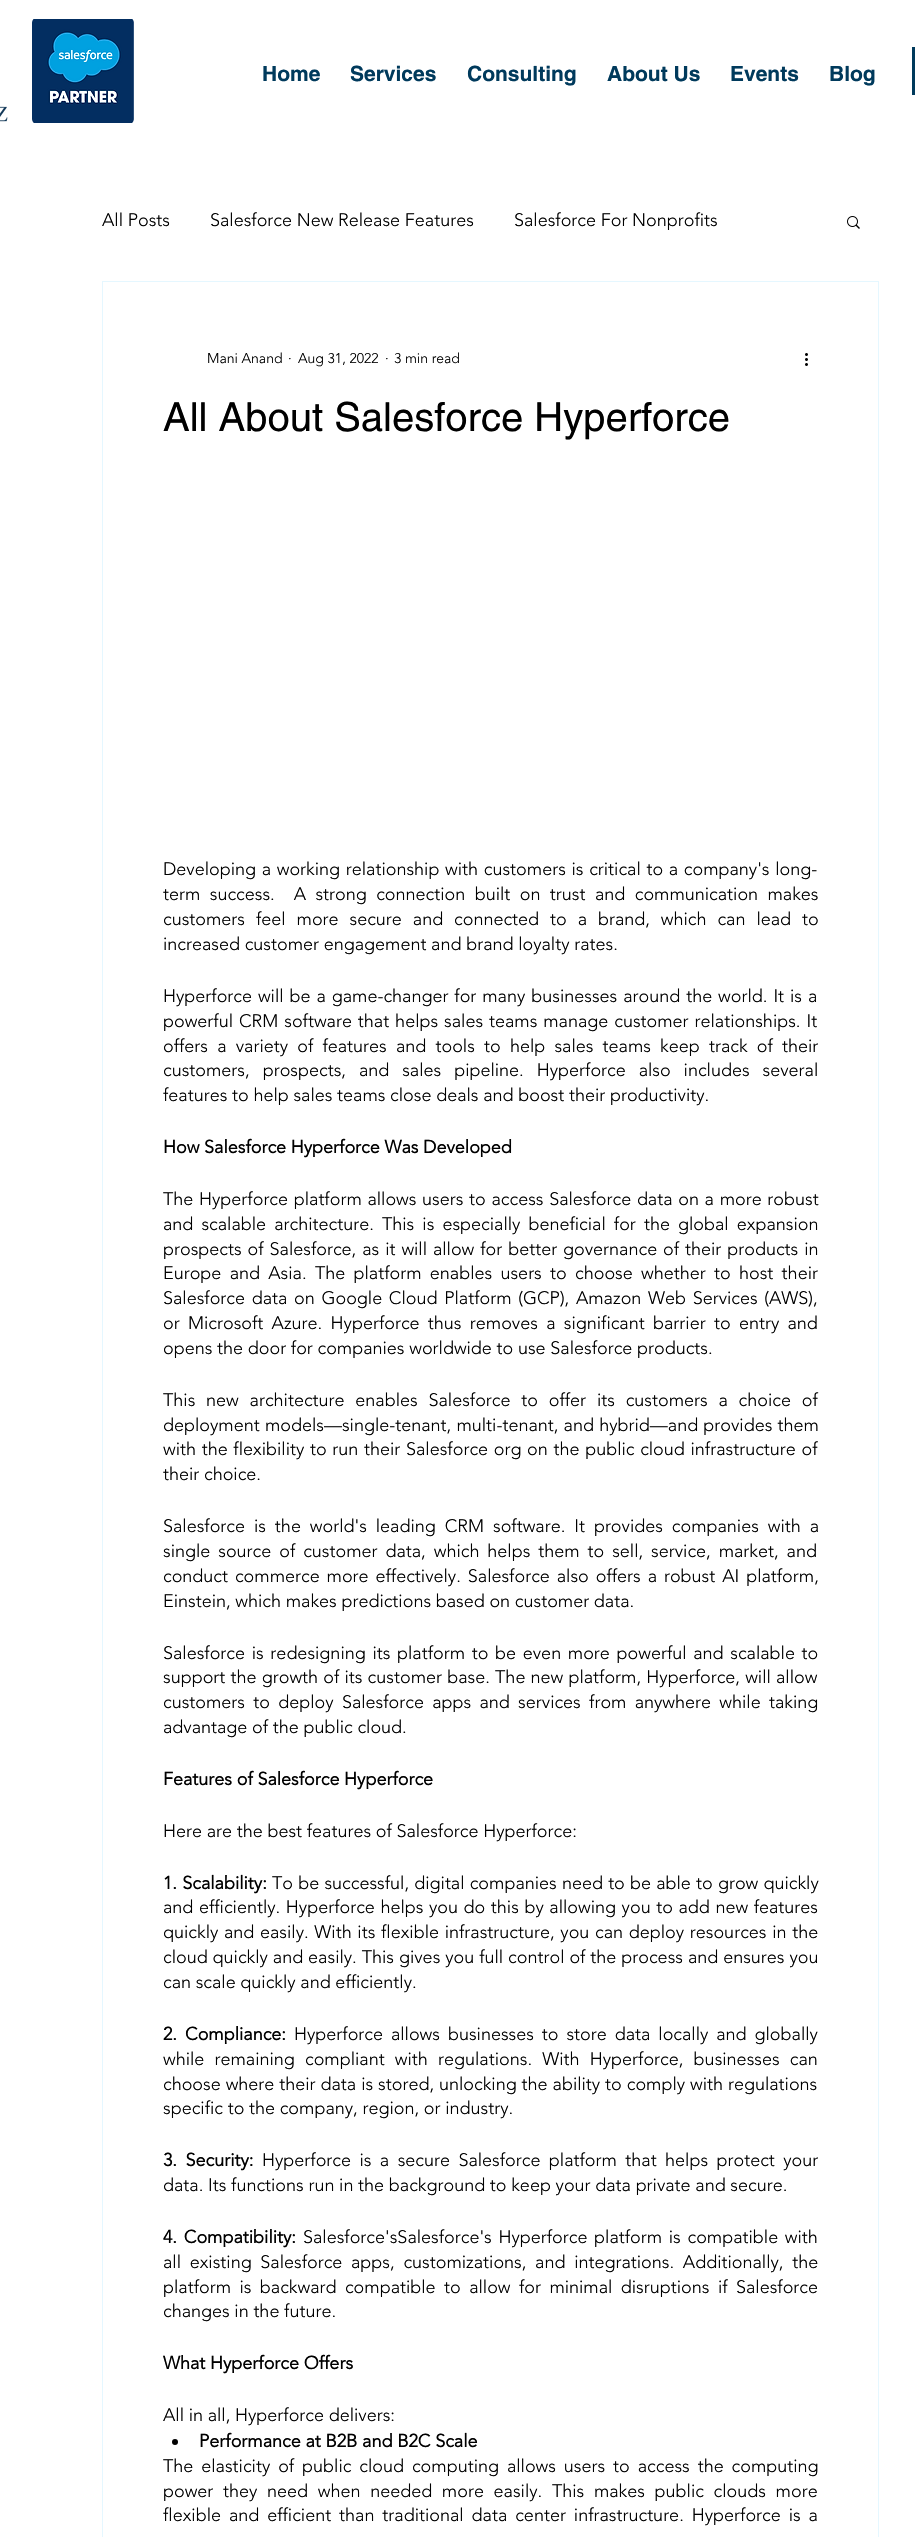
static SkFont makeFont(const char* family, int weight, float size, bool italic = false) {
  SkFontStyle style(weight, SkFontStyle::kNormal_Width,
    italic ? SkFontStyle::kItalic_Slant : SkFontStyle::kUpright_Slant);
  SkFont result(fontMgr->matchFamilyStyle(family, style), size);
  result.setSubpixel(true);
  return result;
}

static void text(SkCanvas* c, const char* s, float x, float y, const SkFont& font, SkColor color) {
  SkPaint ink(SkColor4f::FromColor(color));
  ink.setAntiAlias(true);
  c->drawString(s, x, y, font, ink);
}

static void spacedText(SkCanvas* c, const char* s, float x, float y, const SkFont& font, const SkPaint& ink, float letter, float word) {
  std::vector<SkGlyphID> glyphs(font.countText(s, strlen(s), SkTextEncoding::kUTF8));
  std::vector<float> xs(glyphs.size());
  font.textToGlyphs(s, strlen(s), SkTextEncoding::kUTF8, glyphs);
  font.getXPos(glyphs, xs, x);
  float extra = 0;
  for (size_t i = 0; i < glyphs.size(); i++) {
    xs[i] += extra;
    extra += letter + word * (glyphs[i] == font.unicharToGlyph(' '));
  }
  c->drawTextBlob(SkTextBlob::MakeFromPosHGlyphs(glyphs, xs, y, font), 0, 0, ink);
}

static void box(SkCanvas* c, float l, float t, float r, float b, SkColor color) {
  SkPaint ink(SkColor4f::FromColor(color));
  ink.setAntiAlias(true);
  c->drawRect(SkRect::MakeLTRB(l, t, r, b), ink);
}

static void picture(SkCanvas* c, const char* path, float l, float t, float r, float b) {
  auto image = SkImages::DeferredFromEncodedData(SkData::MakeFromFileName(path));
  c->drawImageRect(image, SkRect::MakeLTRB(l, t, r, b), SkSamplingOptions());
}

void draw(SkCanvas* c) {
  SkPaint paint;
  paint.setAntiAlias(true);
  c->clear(0xffffffff);
  picture(c, "img_01.png", 32, 19, 134, 123);
  SkFont face1 = makeFont("helvetica", 700, 21);
  text(c, "Home", 262, 81, face1, 0xff003a5c);
  text(c, "Services", 350, 81, face1, 0xff003a5c);
  text(c, "Consulting", 467, 81, face1, 0xff003a5c);
  text(c, "About Us", 607, 81, face1, 0xff003a5c);
  text(c, "Events", 730, 81, face1, 0xff003a5c);
  text(c, "Blog", 829, 81, face1, 0xff003a5c);
  box(c, 912, 47, 915, 95, 0xff003a5c);
  picture(c, "img_02.png", 0, 106, 8, 122);
  SkFont face2 = makeFont("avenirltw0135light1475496", 300, 18);
  text(c, "All Posts", 102, 226, face2, 0xff000000);
  text(c, "Salesforce New Release Features", 210, 226, face2, 0xff000000);
  text(c, "Salesforce For Nonprofits", 514, 226, face2, 0xff000000);
  picture(c, "img_03.png", 847, 216, 860, 229);
  paint.setStyle(SkPaint::kStroke_Style);
  paint.setStrokeWidth(1);
  paint.setColor(0xffe5f7ff);
  c->drawRect(SkRect::MakeLTRB(102.5f, 281.5f, 878.5f, 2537.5f), paint);
  SkFont face3 = makeFont("avenirltw0135light1475496", 300, 14);
  text(c, "Mani Anand", 207, 363, face3, 0xff000000);
  text(c, "·", 288, 363, face3, 0xff000000);
  text(c, "Aug 31, 2022", 298, 363, face3, 0xff000000);
  text(c, "·", 385, 363, face3, 0xff000000);
  text(c, "3 min read", 394, 363, face3, 0xff000000);
  picture(c, "img_04.png", 805, 353, 808, 366);
  SkFont face4 = makeFont("helvetica", 400, 40);
  text(c, "All About Salesforce Hyperforce", 163, 431, face4, 0xff000000);
  paint.setStyle(SkPaint::kFill_Style);
  paint.setColor(0xff000000);
  spacedText(c, "Developing a working relationship with customers is critical to a company's long-", 163, 875, face2, paint, 0, 1);
  spacedText(c, "term success.  A strong connection built on trust and communication makes", 163, 900, face2, paint, 0, 4.75f);
  spacedText(c, "customers feel more secure and connected to a brand, which can lead to", 163, 925, face2, paint, 0, 6.25f);
  text(c, "increased customer engagement and brand loyalty rates.", 163, 950, face2, 0xff000000);
  spacedText(c, "Hyperforce will be a game-changer for many businesses around the world. It is a", 163, 1002, face2, paint, 0, 1.25f);
  spacedText(c, "powerful CRM software that helps sales teams manage customer relationships. It", 163, 1027, face2, paint, 0, 1.25f);
  spacedText(c, "offers a variety of features and tools to help sales teams keep track of their", 163, 1052, face2, paint, 0, 4.5f);
  spacedText(c, "customers, prospects, and sales pipeline. Hyperforce also includes several", 163, 1076, face2, paint, 0, 8.25f);
  text(c, "features to help sales teams close deals and boost their productivity.", 163, 1101, face2, 0xff000000);
  SkFont face5 = makeFont("avenirltw0135light1475496", 700, 18);
  text(c, "How Salesforce Hyperforce Was Developed", 163, 1153, face5, 0xff000000);
  spacedText(c, "The Hyperforce platform allows users to access Salesforce data on a more robust", 163, 1205, face2, paint, 0, 1);
  spacedText(c, "and scalable architecture. This is especially beneficial for the global expansion", 163, 1230, face2, paint, 0, 3.4f);
  spacedText(c, "prospects of Salesforce, as it will allow for better governance of their products in", 163, 1255, face2, paint, 0, 1.25f);
  spacedText(c, "Europe and Asia. The platform enables users to choose whether to host their", 163, 1279, face2, paint, 0, 3.6f);
  spacedText(c, "Salesforce data on Google Cloud Platform (GCP), Amazon Web Services (AWS),", 163, 1304, face2, paint, 0, 2);
  spacedText(c, "or Microsoft Azure. Hyperforce thus removes a significant barrier to entry and", 163, 1329, face2, paint, 0, 3.6f);
  text(c, "opens the door for companies worldwide to use Salesforce products.", 163, 1354, face2, 0xff000000);
  spacedText(c, "This new architecture enables Salesforce to offer its customers a choice of", 163, 1406, face2, paint, 0, 6.1f);
  spacedText(c, "deployment models—single-tenant, multi-tenant, and hybrid—and provides them", 163, 1431, face2, paint, 0, 0.5f);
  spacedText(c, "with the flexibility to run their Salesforce org on the public cloud infrastructure of", 163, 1455, face2, paint, 0, 1);
  text(c, "their choice.", 163, 1480, face2, 0xff000000);
  spacedText(c, "Salesforce is the world's leading CRM software. It provides companies with a", 163, 1532, face2, paint, 0, 4.25f);
  spacedText(c, "single source of customer data, which helps them to sell, service, market, and", 163, 1557, face2, paint, 0, 3.25f);
  spacedText(c, "conduct commerce more effectively. Salesforce also offers a robust AI platform,", 163, 1582, face2, paint, 0, 2.25f);
  text(c, "Einstein, which makes predictions based on customer data.", 163, 1607, face2, 0xff000000);
  spacedText(c, "Salesforce is redesigning its platform to be even more powerful and scalable to", 163, 1659, face2, paint, 0, 2);
  spacedText(c, "support the growth of its customer base. The new platform, Hyperforce, will allow", 163, 1683, face2, paint, 0, 0.5f);
  spacedText(c, "customers to deploy Salesforce apps and services from anywhere while taking", 163, 1708, face2, paint, 0, 3.6f);
  text(c, "advantage of the public cloud.", 163, 1733, face2, 0xff000000);
  text(c, "Features of Salesforce Hyperforce", 163, 1785, face5, 0xff000000);
  text(c, "Here are the best features of Salesforce Hyperforce:", 163, 1837, face2, 0xff000000);
  spacedText(c, "1. Scalability:", 163, 1889, face5, paint, 0, 0.5f);
  spacedText(c, "To be successful, digital companies need to be able to grow quickly", 272, 1889, face2, paint, 0, 0.5f);
  spacedText(c, "and efficiently. Hyperforce helps you do this by allowing you to add new features", 163, 1913, face2, paint, 0, 0.9f);
  spacedText(c, "quickly and easily. With its flexible infrastructure, you can deploy resources in the", 163, 1938, face2, paint, 0, 1);
  spacedText(c, "cloud quickly and easily. This gives you full control of the process and ensures you", 163, 1963, face2, paint, 0, 0.25f);
  text(c, "can scale quickly and efficiently.", 163, 1988, face2, 0xff000000);
  spacedText(c, "2. Compliance:", 163, 2040, face5, paint, 0, 3.25f);
  spacedText(c, "Hyperforce allows businesses to store data locally and globally", 294, 2040, face2, paint, 0, 3.25f);
  spacedText(c, "while remaining compliant with regulations. With Hyperforce, businesses can", 163, 2065, face2, paint, 0, 5.5f);
  spacedText(c, "choose where their data is stored, unlocking the ability to comply with regulations", 163, 2090, face2, paint, 0, 0.25f);
  text(c, "specific to the company, region, or industry.", 163, 2114, face2, 0xff000000);
  spacedText(c, "3. Security:", 163, 2166, face5, paint, 0, 3.75f);
  spacedText(c, "Hyperforce is a secure Salesforce platform that helps protect your", 262, 2166, face2, paint, 0, 3.75f);
  text(c, "data. Its functions run in the background to keep your data private and secure.", 163, 2191, face2, 0xff000000);
  spacedText(c, "4. Compatibility:", 163, 2243, face5, paint, 0, 2);
  spacedText(c, "Salesforce'sSalesforce's Hyperforce platform is compatible with", 303, 2243, face2, paint, 0, 2);
  spacedText(c, "all existing Salesforce apps, customizations, and integrations. Additionally, the", 163, 2268, face2, paint, 0, 4);
  spacedText(c, "platform is backward compatible to allow for minimal disruptions if Salesforce", 163, 2293, face2, paint, 0, 3.75f);
  text(c, "changes in the future.", 163, 2317, face2, 0xff000000);
  text(c, "What Hyperforce Offers", 163, 2369, face5, 0xff000000);
  text(c, "All in all, Hyperforce delivers:", 163, 2421, face2, 0xff000000);
  c->drawCircle(175, 2442, 3, paint);
  text(c, "Performance at B2B and B2C Scale", 199, 2447, face5, 0xff000000);
  spacedText(c, "The elasticity of public cloud computing allows users to access the computing", 163, 2472, face2, paint, 0, 3.25f);
  spacedText(c, "power they need when needed more easily. This makes public clouds more", 163, 2497, face2, paint, 0, 5);
  spacedText(c, "flexible and efficient than traditional data center infrastructure. Hyperforce is a", 163, 2521, face2, paint, 0, 3.25f);
}
